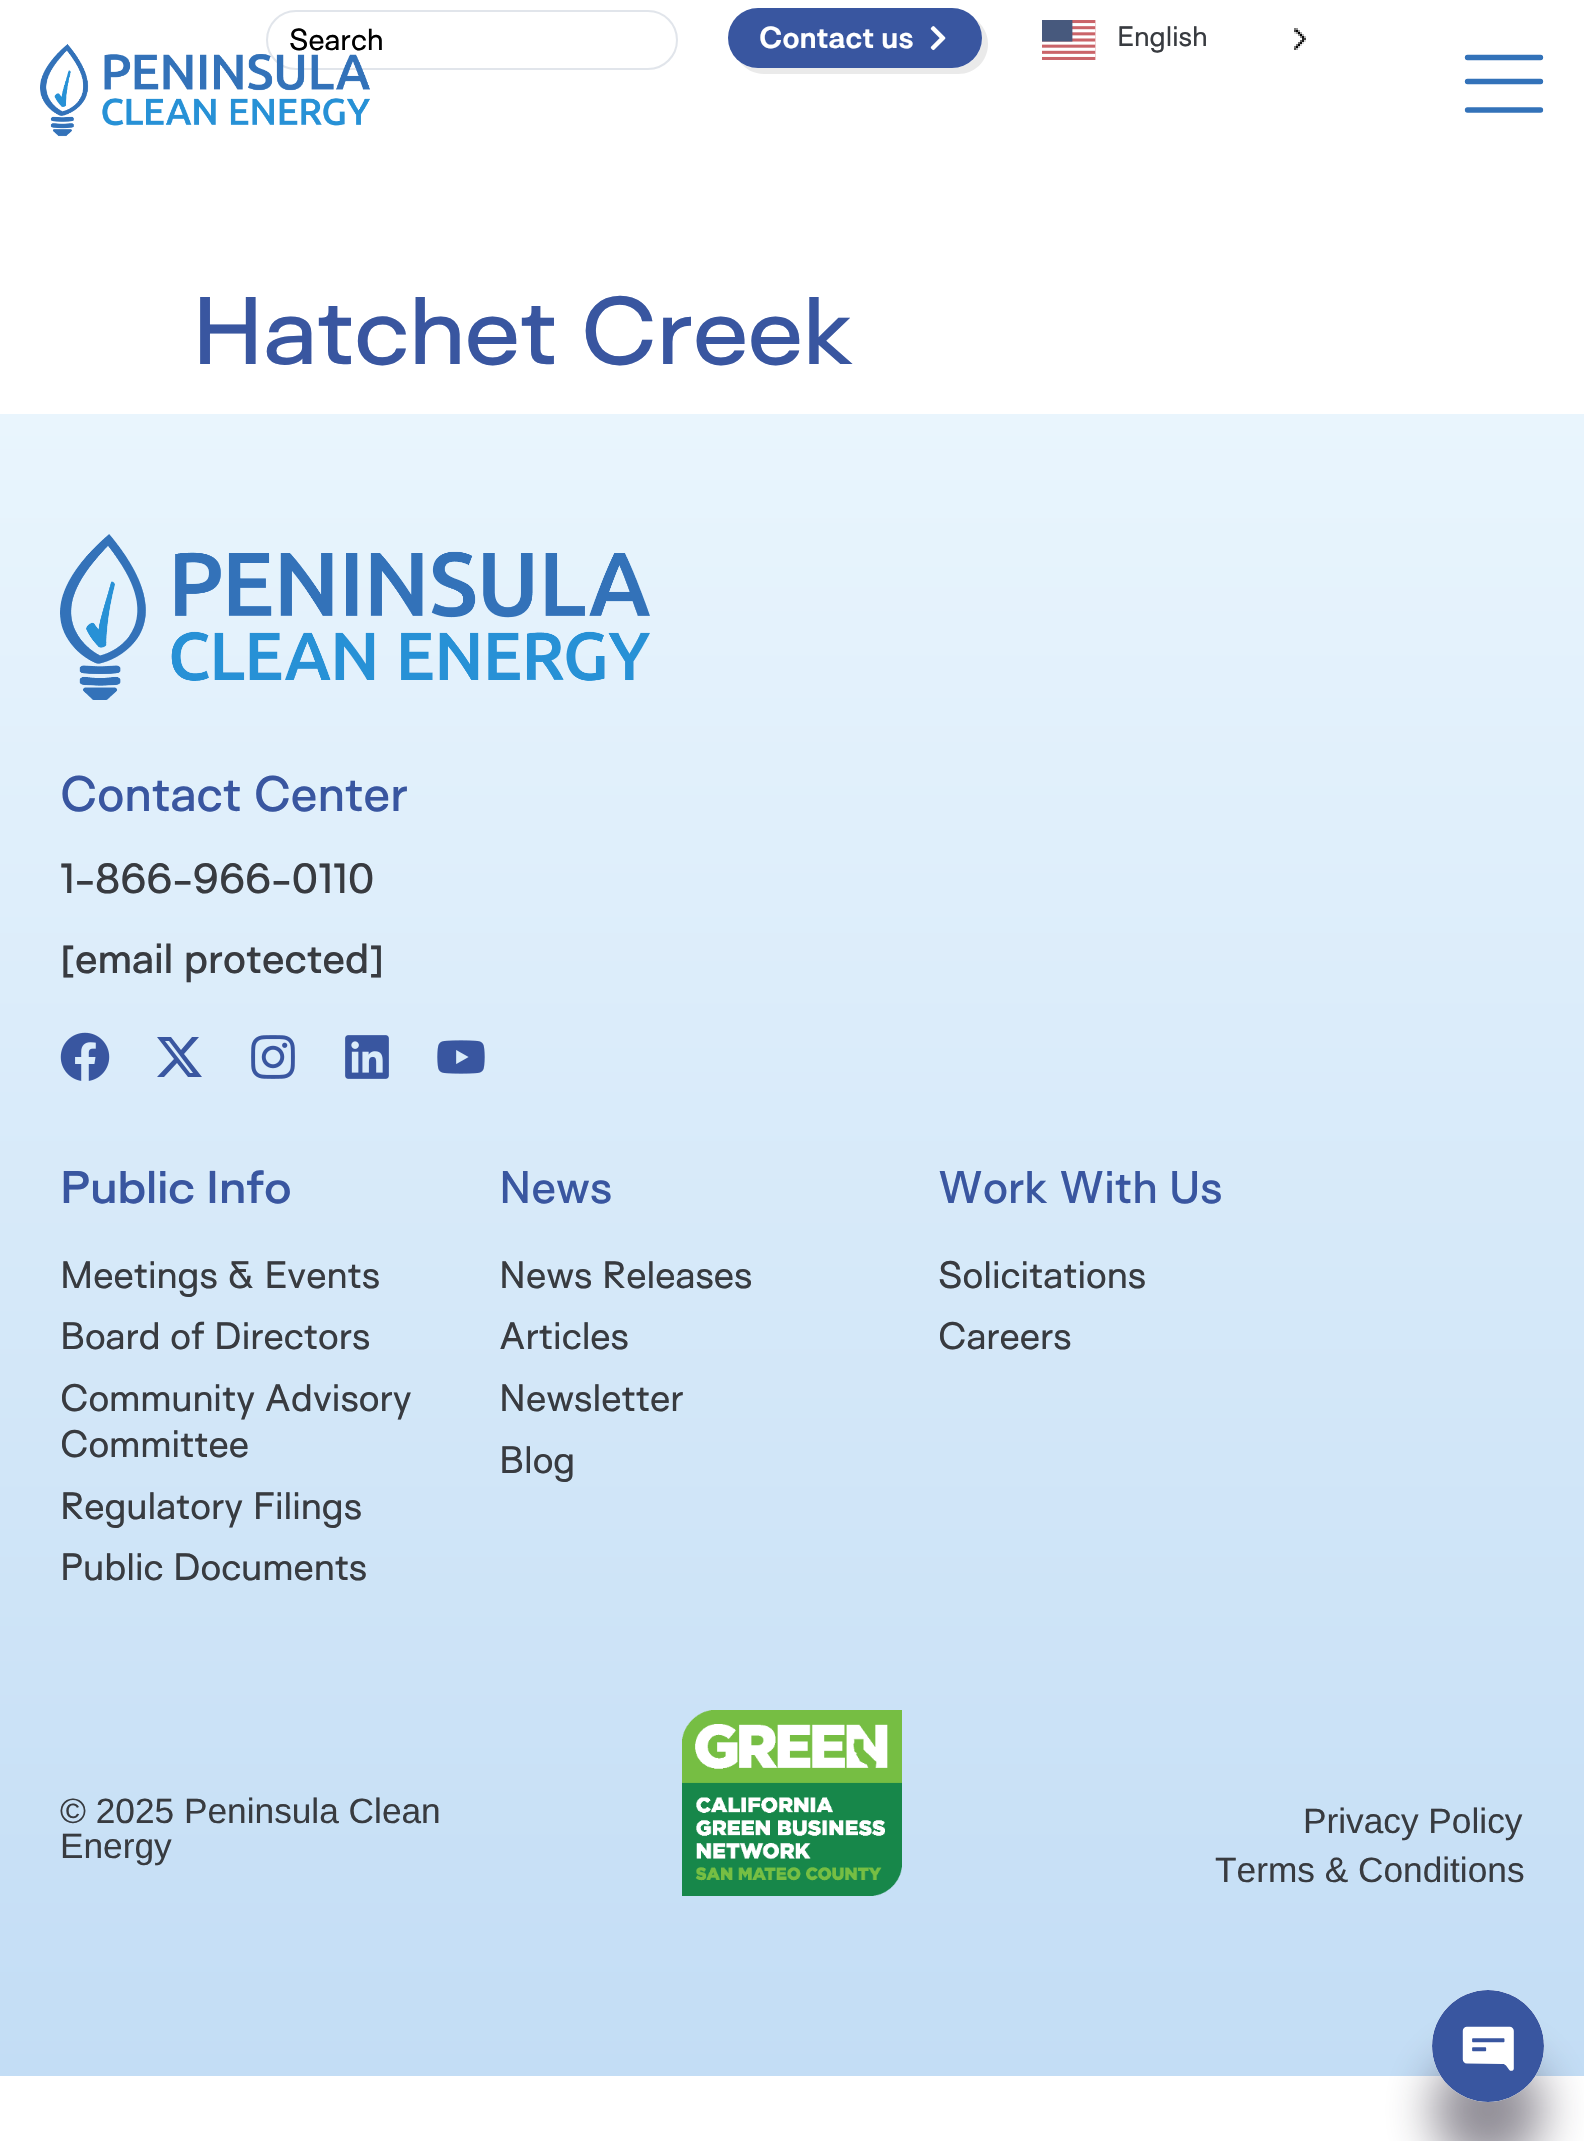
static SkFont makeFont(const char* family, int weight, float size, bool italic = false) {
  SkFontStyle style(weight, SkFontStyle::kNormal_Width,
    italic ? SkFontStyle::kItalic_Slant : SkFontStyle::kUpright_Slant);
  SkFont result(fontMgr->matchFamilyStyle(family, style), size);
  result.setSubpixel(true);
  return result;
}

static void text(SkCanvas* c, const char* s, float x, float y, const SkFont& font, SkColor color) {
  SkPaint ink(SkColor4f::FromColor(color));
  ink.setAntiAlias(true);
  c->drawString(s, x, y, font, ink);
}

static void roundBox(SkCanvas* c, float l, float t, float r, float b, float radius, SkColor color) {
  SkPaint ink(SkColor4f::FromColor(color));
  ink.setAntiAlias(true);
  c->drawRoundRect(SkRect::MakeLTRB(l, t, r, b), radius, radius, ink);
}

static void picture(SkCanvas* c, const char* path, float l, float t, float r, float b) {
  auto image = SkImages::DeferredFromEncodedData(SkData::MakeFromFileName(path));
  c->drawImageRect(image, SkRect::MakeLTRB(l, t, r, b), SkSamplingOptions());
}

void draw(SkCanvas* c) {
  SkPaint paint;
  paint.setAntiAlias(true);
  c->clear(0xffffffff);
  paint.setStyle(SkPaint::kStroke_Style);
  paint.setStrokeWidth(2);
  paint.setColor(0xffe1e5eb);
  c->drawRoundRect(SkRect::MakeLTRB(267, 11, 677, 69), 29, 29, paint);
  SkFont face1 = makeFont("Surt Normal", 400, 28);
  text(c, "Search", 289, 50, face1, 0xff000000);
  paint.setStyle(SkPaint::kFill_Style);
  paint.setColor(0xffeaeaea);
  c->drawPath(SkPathBuilder().moveTo(740, 62).cubicTo(745, 69, 754, 74, 764, 74).lineTo(958, 74).cubicTo(975, 74, 988, 61, 988, 44).cubicTo(988, 34, 983, 25, 976, 20).cubicTo(980, 25, 982, 31, 982, 38).cubicTo(982, 55, 969, 68, 952, 68).lineTo(758, 68).cubicTo(751, 68, 745, 66, 740, 62).close().detach(), paint);
  roundBox(c, 728, 8, 982, 68, 30, 0xff3956a0);
  SkFont face2 = makeFont("Surt Normal", 700, 28);
  text(c, "Contact us", 759, 48, face2, 0xffffffff);
  picture(c, "img_01.png", 930, 26, 946, 51);
  picture(c, "img_02.png", 1042, 20, 1096, 60);
  SkFont face3 = makeFont("Surt Normal", 400, 26);
  text(c, "English", 1117, 46, face3, 0xff383b40);
  picture(c, "img_03.png", 1294, 28, 1306, 50);
  picture(c, "img_04.png", 40, 44, 370, 137);
  paint.setStyle(SkPaint::kStroke_Style);
  paint.setStrokeWidth(5.3f);
  paint.setStrokeCap(SkPaint::kRound_Cap);
  paint.setColor(0xff3372b9);
  c->drawPath(SkPathBuilder().moveTo(1540.5f, 57.5f).lineTo(1467.5f, 57.5f).detach(), paint);
  c->drawPath(SkPathBuilder().moveTo(1540.5f, 81.5f).lineTo(1467.5f, 81.5f).detach(), paint);
  c->drawPath(SkPathBuilder().moveTo(1540.5f, 110).lineTo(1467.5f, 110).detach(), paint);
  SkFont face4 = makeFont("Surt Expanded", 500, 88);
  text(c, "Hatchet Creek", 192, 364, face4, 0xff3956a0);
  paint.setStyle(SkPaint::kFill_Style);
  {
    const SkColor colors[] = {0xffe9f5fd, 0xffc3ddf5};
    const float stops[] = {0, 1};
    const SkPoint ends[] = {{792, 414}, {792, 2076}};
    paint.setShader(SkGradientShader::MakeLinear(ends, colors, stops, 2, SkTileMode::kClamp));
    paint.setAlpha(255);
  }
  c->drawRect(SkRect::MakeLTRB(0, 414, 1584, 2076), paint);
  picture(c, "img_05.png", 60, 534, 650, 700);
  SkFont face5 = makeFont("Surt Normal", 500, 45.75f);
  text(c, "Contact Center", 60, 811, face5, 0xff3956a0);
  SkFont face6 = makeFont("Surt Normal", 500, 38.75f);
  text(c, "1-866-966-0110", 60, 893, face6, 0xff383b40);
  text(c, "[email protected]", 60, 973, face6, 0xff383b40);
  picture(c, "img_06.png", 60, 1032, 110, 1081);
  paint.setShader(nullptr);
  paint.setColor(0xff3956a0);
  c->drawPath(SkPathBuilder().moveTo(192, 1037).lineTo(199, 1037).lineTo(184, 1054).lineTo(202, 1077).lineTo(188, 1077).lineTo(177, 1063).lineTo(164, 1077).lineTo(157, 1077).lineTo(174, 1059).lineTo(157, 1037).lineTo(171, 1037).lineTo(181, 1050).close().moveTo(190, 1073).lineTo(193, 1073).lineTo(169, 1041).lineTo(165, 1041).close().detach(), paint);
  picture(c, "img_07.png", 251, 1035, 295, 1079);
  picture(c, "img_08.png", 345, 1035, 389, 1079);
  picture(c, "img_09.png", 437, 1040, 485, 1074);
  SkFont face7 = makeFont("Surt Expanded", 600, 42.25f);
  text(c, "Public Info", 60, 1203, face7, 0xff3956a0);
  SkFont face8 = makeFont("Surt Normal", 400, 35.25f);
  text(c, "Meetings & Events", 60, 1288, face8, 0xff383b40);
  text(c, "Board of Directors", 60, 1349, face8, 0xff383b40);
  text(c, "Community Advisory", 60, 1411, face8, 0xff383b40);
  text(c, "Committee", 60, 1457, face8, 0xff383b40);
  text(c, "Regulatory Filings", 60, 1519, face8, 0xff383b40);
  text(c, "Public Documents", 60, 1580, face8, 0xff383b40);
  SkFont face9 = makeFont("Surt Normal", 500, 42.25f);
  text(c, "News", 499, 1203, face9, 0xff3956a0);
  text(c, "News Releases", 499, 1288, face8, 0xff383b40);
  text(c, "Articles", 499, 1349, face8, 0xff383b40);
  text(c, "Newsletter", 499, 1411, face8, 0xff383b40);
  text(c, "Blog", 499, 1473, face8, 0xff383b40);
  text(c, "Work With Us", 938, 1203, face9, 0xff3956a0);
  text(c, "Solicitations", 938, 1288, face8, 0xff383b40);
  text(c, "Careers", 938, 1349, face8, 0xff383b40);
  SkFont face10 = makeFont("Liberation Sans", 400, 35.25f);
  text(c, "© 2025 Peninsula Clean", 60, 1823, face10, 0xff383b40);
  text(c, "Energy", 60, 1858, face10, 0xff383b40);
  picture(c, "img_10.png", 682, 1710, 902, 1896);
  text(c, "Privacy Policy", 1303, 1833, face10, 0xff383b40);
  text(c, "Terms & Conditions", 1215, 1882, face10, 0xff383b40);
  paint.setColor(0x80231e30);
  paint.setMaskFilter(SkMaskFilter::MakeBlur(kNormal_SkBlurStyle, 24));
  c->drawRoundRect(SkRect::MakeLTRB(1432, 2054, 1544, 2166), 56, 56, paint);
  paint.setMaskFilter(nullptr);
  paint.setColor(0xffffffff);
  c->drawCircle(1488, 2046, 56, paint);
  picture(c, "img_11.png", 1432, 1990, 1544, 2102);
}
